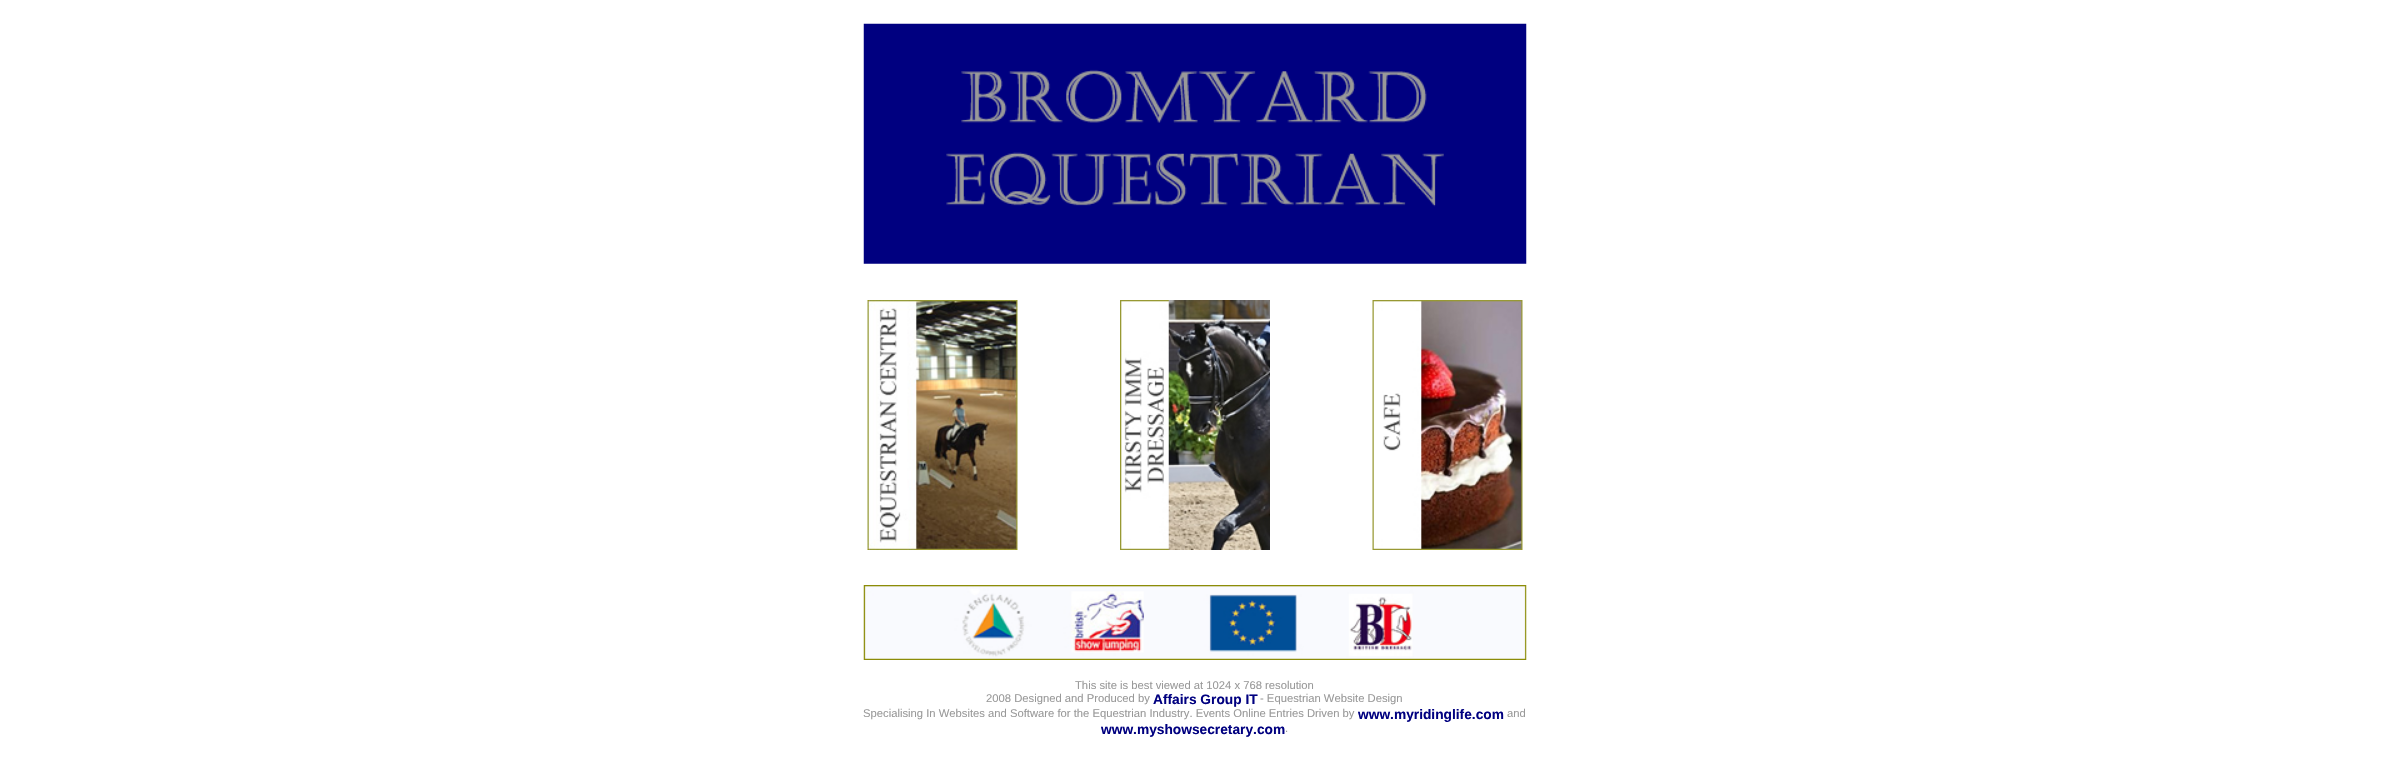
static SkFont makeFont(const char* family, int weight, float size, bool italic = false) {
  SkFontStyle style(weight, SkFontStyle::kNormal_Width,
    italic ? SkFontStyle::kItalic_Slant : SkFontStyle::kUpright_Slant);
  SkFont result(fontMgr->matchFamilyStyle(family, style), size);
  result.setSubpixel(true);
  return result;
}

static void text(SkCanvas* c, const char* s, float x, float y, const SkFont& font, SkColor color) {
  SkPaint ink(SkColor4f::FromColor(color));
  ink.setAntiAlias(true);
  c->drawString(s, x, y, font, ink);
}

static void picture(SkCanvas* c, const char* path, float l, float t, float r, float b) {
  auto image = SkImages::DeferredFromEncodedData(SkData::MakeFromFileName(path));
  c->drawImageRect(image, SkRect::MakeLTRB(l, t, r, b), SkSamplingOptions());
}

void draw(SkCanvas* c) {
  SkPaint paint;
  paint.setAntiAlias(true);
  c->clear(0xffffffff);
  picture(c, "img_01.png", 863, 23, 1527, 264);
  picture(c, "img_02.png", 867, 300, 1018, 550);
  picture(c, "img_03.png", 1120, 300, 1270, 550);
  picture(c, "img_04.png", 1372, 300, 1523, 550);
  picture(c, "img_05.png", 863, 585, 1527, 660);
  SkFont face1 = makeFont("Liberation Sans", 400, 11.25f);
  text(c, "This site is best viewed at 1024 x 768 resolution", 1075, 689, face1, 0xff999999);
  text(c, "2008 Designed and Produced by", 986, 702, face1, 0xff999999);
  SkFont face2 = makeFont("Liberation Sans", 700, 13.75f);
  text(c, "Affairs Group IT", 1153, 704, face2, 0xff000080);
  text(c, "- Equestrian Website Design", 1260, 702, face1, 0xff999999);
  text(c, "Specialising In Websites and Software for the Equestrian Industry. Events Online Entries Driven by", 863, 717, face1, 0xff999999);
  text(c, "www.myridinglife.com", 1358, 719, face2, 0xff000080);
  text(c, "and", 1507, 717, face1, 0xff999999);
  text(c, "www.myshowsecretary.com", 1101, 734, face2, 0xff000080);
  text(c, ".", 1285, 732, face1, 0xff999999);
}
